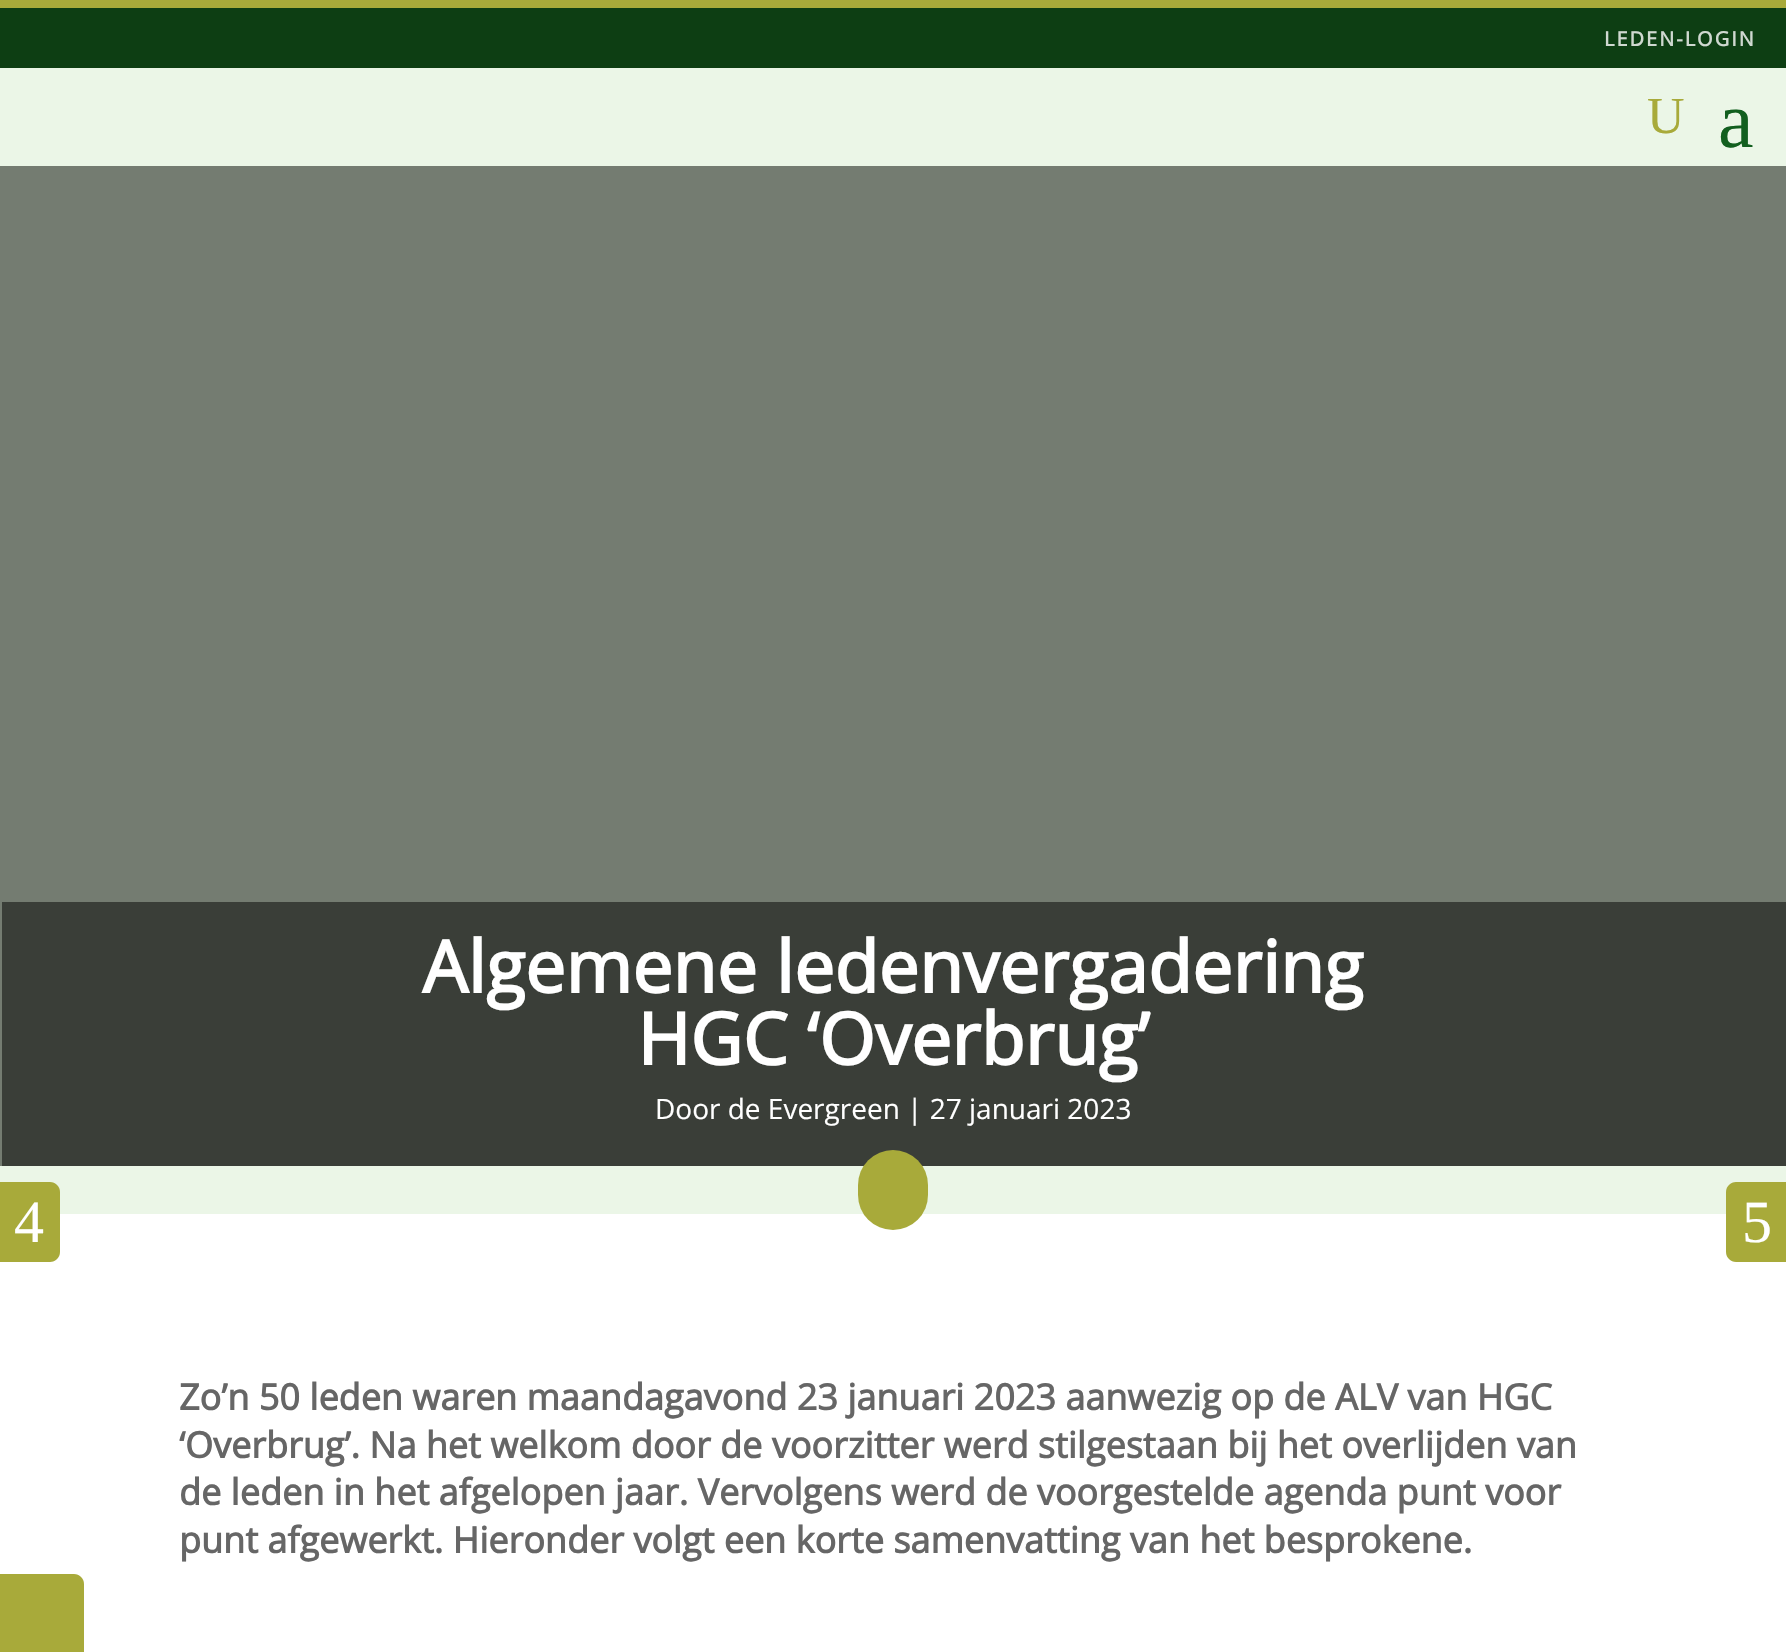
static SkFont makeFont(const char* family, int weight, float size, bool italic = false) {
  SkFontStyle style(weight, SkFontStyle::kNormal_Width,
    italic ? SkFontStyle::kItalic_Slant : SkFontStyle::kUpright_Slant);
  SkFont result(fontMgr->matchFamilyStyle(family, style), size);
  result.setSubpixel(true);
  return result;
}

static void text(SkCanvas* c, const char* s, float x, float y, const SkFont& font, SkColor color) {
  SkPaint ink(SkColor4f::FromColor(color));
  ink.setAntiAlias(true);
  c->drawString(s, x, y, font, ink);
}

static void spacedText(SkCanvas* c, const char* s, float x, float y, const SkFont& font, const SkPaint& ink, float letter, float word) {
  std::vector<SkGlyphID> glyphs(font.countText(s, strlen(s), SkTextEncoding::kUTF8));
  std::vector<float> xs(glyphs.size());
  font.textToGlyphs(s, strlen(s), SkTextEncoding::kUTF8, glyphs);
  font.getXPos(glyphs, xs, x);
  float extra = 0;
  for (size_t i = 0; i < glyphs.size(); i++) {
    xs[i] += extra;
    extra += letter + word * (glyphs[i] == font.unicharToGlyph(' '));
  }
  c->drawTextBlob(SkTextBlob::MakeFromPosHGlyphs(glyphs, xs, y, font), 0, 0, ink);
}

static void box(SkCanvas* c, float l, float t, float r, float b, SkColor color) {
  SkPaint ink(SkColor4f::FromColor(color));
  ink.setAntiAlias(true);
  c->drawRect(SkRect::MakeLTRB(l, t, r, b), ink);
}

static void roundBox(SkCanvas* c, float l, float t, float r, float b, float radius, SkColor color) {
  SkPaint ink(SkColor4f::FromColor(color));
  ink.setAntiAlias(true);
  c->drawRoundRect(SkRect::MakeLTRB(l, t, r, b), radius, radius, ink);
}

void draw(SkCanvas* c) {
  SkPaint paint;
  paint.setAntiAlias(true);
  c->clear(0xff0d3e13);
  box(c, 0, 0, 1786, 8, 0xffa8aa3a);
  SkFont face1 = makeFont("Open Sans", 700, 20);
  paint.setColor(0xffcfd8d0);
  spacedText(c, "LEDEN-LOGIN", 1604, 46, face1, paint, 2, 0);
  box(c, 0, 68, 1786, 166, 0xffebf6e7);
  SkFont face2 = makeFont("Liberation Serif", 400, 52);
  text(c, "U", 1647, 133, face2, 0xffa8aa3a);
  SkFont face3 = makeFont("Liberation Serif", 400, 80);
  text(c, "a", 1718, 147, face3, 0xff125f1f);
  box(c, 0, 166, 1786, 1166, 0xff747c71);
  box(c, 2, 902, 1786, 1166, 0xff3a3e38);
  SkFont face4 = makeFont("Open Sans", 700, 72);
  text(c, "Algemene ledenvergadering", 422, 993, face4, 0xffffffff);
  text(c, "HGC ‘Overbrug’", 637, 1065, face4, 0xffffffff);
  SkFont face5 = makeFont("Open Sans", 400, 28);
  text(c, "Door de Evergreen | 27 januari 2023", 655, 1119, face5, 0xffffffff);
  box(c, 0, 1166, 1786, 1214, 0xffebf6e7);
  box(c, 0, 1214, 1786, 1652, 0xffffffff);
  roundBox(c, 858, 1150, 928, 1230, 35, 0xffa8aa3a);
  SkFont face6 = makeFont("Open Sans", 700, 36);
  text(c, "Zo’n 50 leden waren maandagavond 23 januari 2023 aanwezig op de ALV van HGC", 179, 1410, face6, 0xff666666);
  text(c, "‘Overbrug’. Na het welkom door de voorzitter werd stilgestaan bij het overlijden van", 179, 1458, face6, 0xff666666);
  text(c, "de leden in het afgelopen jaar. Vervolgens werd de voorgestelde agenda punt voor", 179, 1505, face6, 0xff666666);
  text(c, "punt afgewerkt. Hieronder volgt een korte samenvatting van het besprokene.", 179, 1553, face6, 0xff666666);
  paint.setColor(0xffa8aa3a);
  c->drawPath(SkPathBuilder().moveTo(-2, 1182).lineTo(50, 1182).cubicTo(55.5f, 1182, 60, 1186.5f, 60, 1192).lineTo(60, 1252).cubicTo(60, 1257.5f, 55.5f, 1262, 50, 1262).lineTo(-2, 1262).close().detach(), paint);
  SkFont face7 = makeFont("Liberation Serif", 400, 60);
  text(c, "4", 14, 1242, face7, 0xffffffff);
  c->drawPath(SkPathBuilder().moveTo(1736, 1182).lineTo(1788, 1182).lineTo(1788, 1262).lineTo(1736, 1262).cubicTo(1730.5f, 1262, 1726, 1257.5f, 1726, 1252).lineTo(1726, 1192).cubicTo(1726, 1186.5f, 1730.5f, 1182, 1736, 1182).close().detach(), paint);
  text(c, "5", 1742, 1242, face7, 0xffffffff);
  c->drawPath(SkPathBuilder().moveTo(0, 1574).lineTo(74, 1574).cubicTo(79.5f, 1574, 84, 1578.5f, 84, 1584).lineTo(84, 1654).lineTo(0, 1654).close().detach(), paint);
}
